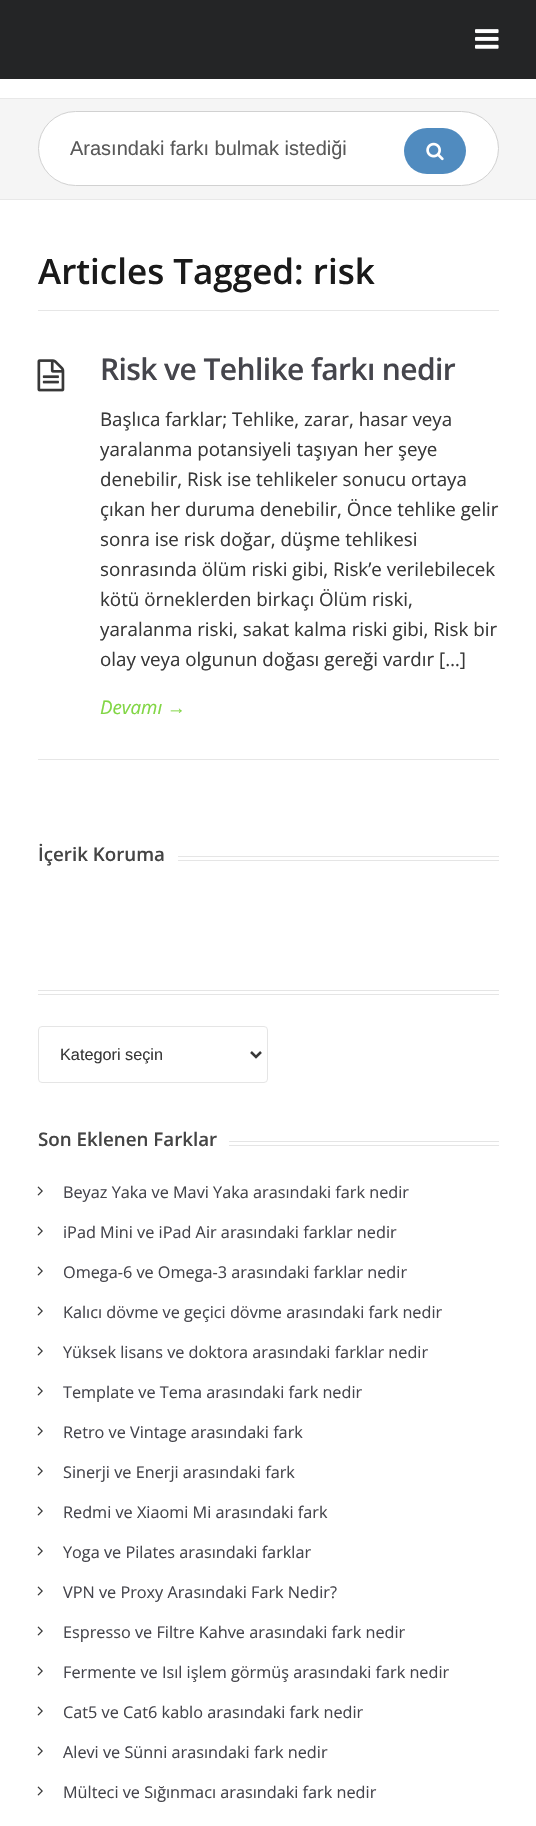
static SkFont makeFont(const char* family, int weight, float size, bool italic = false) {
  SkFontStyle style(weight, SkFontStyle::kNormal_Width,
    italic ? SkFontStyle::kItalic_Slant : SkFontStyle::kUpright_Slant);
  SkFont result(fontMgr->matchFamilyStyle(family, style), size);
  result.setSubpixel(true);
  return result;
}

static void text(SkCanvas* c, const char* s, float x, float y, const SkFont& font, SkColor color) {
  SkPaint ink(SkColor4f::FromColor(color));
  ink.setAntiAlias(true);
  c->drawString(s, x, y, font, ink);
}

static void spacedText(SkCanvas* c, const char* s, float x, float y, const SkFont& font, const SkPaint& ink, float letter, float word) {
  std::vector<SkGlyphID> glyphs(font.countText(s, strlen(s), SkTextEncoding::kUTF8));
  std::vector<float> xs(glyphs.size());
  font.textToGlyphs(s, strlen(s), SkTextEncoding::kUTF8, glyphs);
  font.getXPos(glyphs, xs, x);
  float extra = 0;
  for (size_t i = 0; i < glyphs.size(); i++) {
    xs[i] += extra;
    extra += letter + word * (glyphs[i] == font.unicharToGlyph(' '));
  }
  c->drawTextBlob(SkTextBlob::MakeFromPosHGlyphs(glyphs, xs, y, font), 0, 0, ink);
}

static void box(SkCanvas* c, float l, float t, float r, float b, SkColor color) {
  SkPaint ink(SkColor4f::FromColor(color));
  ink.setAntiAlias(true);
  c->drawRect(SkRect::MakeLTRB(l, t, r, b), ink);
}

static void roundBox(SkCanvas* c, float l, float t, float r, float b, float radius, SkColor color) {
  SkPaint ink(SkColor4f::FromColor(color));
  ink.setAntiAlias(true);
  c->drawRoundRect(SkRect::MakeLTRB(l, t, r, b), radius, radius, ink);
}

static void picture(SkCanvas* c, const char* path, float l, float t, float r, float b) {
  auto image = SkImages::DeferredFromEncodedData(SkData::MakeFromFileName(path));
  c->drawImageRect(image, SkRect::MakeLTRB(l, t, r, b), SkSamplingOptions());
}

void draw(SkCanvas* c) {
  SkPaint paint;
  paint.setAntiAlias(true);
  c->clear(0xffffffff);
  box(c, 0, 0, 536, 79, 0xff242526);
  picture(c, "img_01.png", 475, 29, 499, 49);
  box(c, 0, 99, 536, 199, 0xfff5f5f5);
  box(c, 0, 98, 536, 99, 0xffe8e8e8);
  box(c, 0, 199, 536, 200, 0xffe8e8e8);
  paint.setColor(0xffffffff);
  c->drawRoundRect(SkRect::MakeLTRB(38.5f, 111.5f, 498.5f, 185.5f), 37, 37, paint);
  paint.setStyle(SkPaint::kStroke_Style);
  paint.setStrokeWidth(1);
  paint.setColor(0xffd1d1d1);
  c->drawRoundRect(SkRect::MakeLTRB(38.5f, 111.5f, 498.5f, 185.5f), 37, 37, paint);
  SkFont face1 = makeFont("Liberation Sans", 400, 20);
  text(c, "Arasındaki farkı bulmak istediği", 70, 155, face1, 0xff595959);
  roundBox(c, 404, 128, 466, 174, 23, 0xff508bbf);
  picture(c, "img_02.png", 426, 142, 444, 161);
  box(c, 38, 310, 499, 311, 0xffe6e6e6);
  SkFont face2 = makeFont("Open Sans", 600, 35);
  text(c, "Articles Tagged: risk", 38, 284, face2, 0xff1a1a1a);
  box(c, 38, 759, 499, 760, 0xffe6e6e6);
  picture(c, "img_03.png", 37, 359, 65, 392);
  SkFont face3 = makeFont("Open Sans", 600, 30);
  paint.setStyle(SkPaint::kFill_Style);
  paint.setColor(0xff45454c);
  spacedText(c, "Risk ve Tehlike farkı nedir", 100, 380, face3, paint, -0.6f, 0);
  SkFont face4 = makeFont("Open Sans", 400, 18.75f);
  text(c, "Başlıca farklar; Tehlike, zarar, hasar veya", 100, 426, face4, 0xff383838);
  text(c, "yaralanma potansiyeli taşıyan her şeye", 100, 456, face4, 0xff383838);
  text(c, "denebilir, Risk ise tehlikeler sonucu ortaya", 100, 486, face4, 0xff383838);
  text(c, "çıkan her duruma denebilir, Önce tehlike gelir", 100, 516, face4, 0xff383838);
  text(c, "sonra ise risk doğar, düşme tehlikesi", 100, 546, face4, 0xff383838);
  text(c, "sonrasında ölüm riski gibi, Risk’e verilebilecek", 100, 576, face4, 0xff383838);
  text(c, "kötü örneklerden birkaçı Ölüm riski,", 100, 606, face4, 0xff383838);
  text(c, "yaralanma riski, sakat kalma riski gibi, Risk bir", 100, 636, face4, 0xff383838);
  text(c, "olay veya olgunun doğası gereği vardır […]", 100, 666, face4, 0xff383838);
  SkFont face5 = makeFont("Open Sans", 400, 18.75f, true);
  text(c, "Devamı", 100, 714, face5, 0xff81d644);
  SkFont face6 = makeFont("Liberation Sans", 400, 18.75f, true);
  text(c, "→", 167, 714, face6, 0xff81d644);
  box(c, 178, 856, 499, 857, 0xffe5e5e5);
  box(c, 178, 860, 499, 861, 0xffe5e5e5);
  SkFont face7 = makeFont("Open Sans", 600, 18.75f);
  text(c, "İçerik Koruma", 38, 861, face7, 0xff444444);
  box(c, 38, 990, 499, 991, 0xffe5e5e5);
  box(c, 38, 994, 499, 995, 0xffe5e5e5);
  paint.setStyle(SkPaint::kStroke_Style);
  paint.setColor(0xffe5e5e5);
  c->drawRoundRect(SkRect::MakeLTRB(38.5f, 1026.5f, 267.5f, 1082.5f), 3.5f, 3.5f, paint);
  paint.setStrokeWidth(2.5f);
  paint.setColor(0xff383838);
  c->drawPath(SkPathBuilder().moveTo(251, 1052).lineTo(256, 1057).lineTo(261, 1052).detach(), paint);
  SkFont face8 = makeFont("Liberation Sans", 400, 16.25f);
  text(c, "Kategori seçin", 60, 1060, face8, 0xff383838);
  box(c, 229, 1141, 499, 1142, 0xffe5e5e5);
  box(c, 229, 1145, 499, 1146, 0xffe5e5e5);
  text(c, "Son Eklenen Farklar", 38, 1146, face7, 0xff444444);
  picture(c, "img_04.png", 37, 1186, 43, 1196);
  SkFont face9 = makeFont("Open Sans", 400, 16.25f);
  text(c, "Beyaz Yaka ve Mavi Yaka arasındaki fark nedir", 63, 1198, face9, 0xff45454c);
  picture(c, "img_04.png", 37, 1226, 43, 1236);
  text(c, "iPad Mini ve iPad Air arasındaki farklar nedir", 63, 1238, face9, 0xff45454c);
  picture(c, "img_04.png", 37, 1266, 43, 1276);
  text(c, "Omega-6 ve Omega-3 arasındaki farklar nedir", 63, 1278, face9, 0xff45454c);
  picture(c, "img_04.png", 37, 1306, 43, 1316);
  text(c, "Kalıcı dövme ve geçici dövme arasındaki fark nedir", 63, 1318, face9, 0xff45454c);
  picture(c, "img_04.png", 37, 1346, 43, 1356);
  text(c, "Yüksek lisans ve doktora arasındaki farklar nedir", 63, 1358, face9, 0xff45454c);
  picture(c, "img_04.png", 37, 1386, 43, 1396);
  text(c, "Template ve Tema arasındaki fark nedir", 63, 1398, face9, 0xff45454c);
  picture(c, "img_04.png", 37, 1426, 43, 1436);
  text(c, "Retro ve Vintage arasındaki fark", 63, 1438, face9, 0xff45454c);
  picture(c, "img_04.png", 37, 1466, 43, 1476);
  text(c, "Sinerji ve Enerji arasındaki fark", 63, 1478, face9, 0xff45454c);
  picture(c, "img_04.png", 37, 1506, 43, 1516);
  text(c, "Redmi ve Xiaomi Mi arasındaki fark", 63, 1518, face9, 0xff45454c);
  picture(c, "img_04.png", 37, 1546, 43, 1556);
  text(c, "Yoga ve Pilates arasındaki farklar", 63, 1558, face9, 0xff45454c);
  picture(c, "img_04.png", 37, 1586, 43, 1596);
  text(c, "VPN ve Proxy Arasındaki Fark Nedir?", 63, 1598, face9, 0xff45454c);
  picture(c, "img_04.png", 37, 1626, 43, 1636);
  text(c, "Espresso ve Filtre Kahve arasındaki fark nedir", 63, 1638, face9, 0xff45454c);
  picture(c, "img_04.png", 37, 1666, 43, 1676);
  text(c, "Fermente ve Isıl işlem görmüş arasındaki fark nedir", 63, 1678, face9, 0xff45454c);
  picture(c, "img_04.png", 37, 1706, 43, 1716);
  text(c, "Cat5 ve Cat6 kablo arasındaki fark nedir", 63, 1718, face9, 0xff45454c);
  picture(c, "img_04.png", 37, 1746, 43, 1756);
  text(c, "Alevi ve Sünni arasındaki fark nedir", 63, 1758, face9, 0xff45454c);
  picture(c, "img_04.png", 37, 1786, 43, 1796);
  text(c, "Mülteci ve Sığınmacı arasındaki fark nedir", 63, 1798, face9, 0xff45454c);
}
